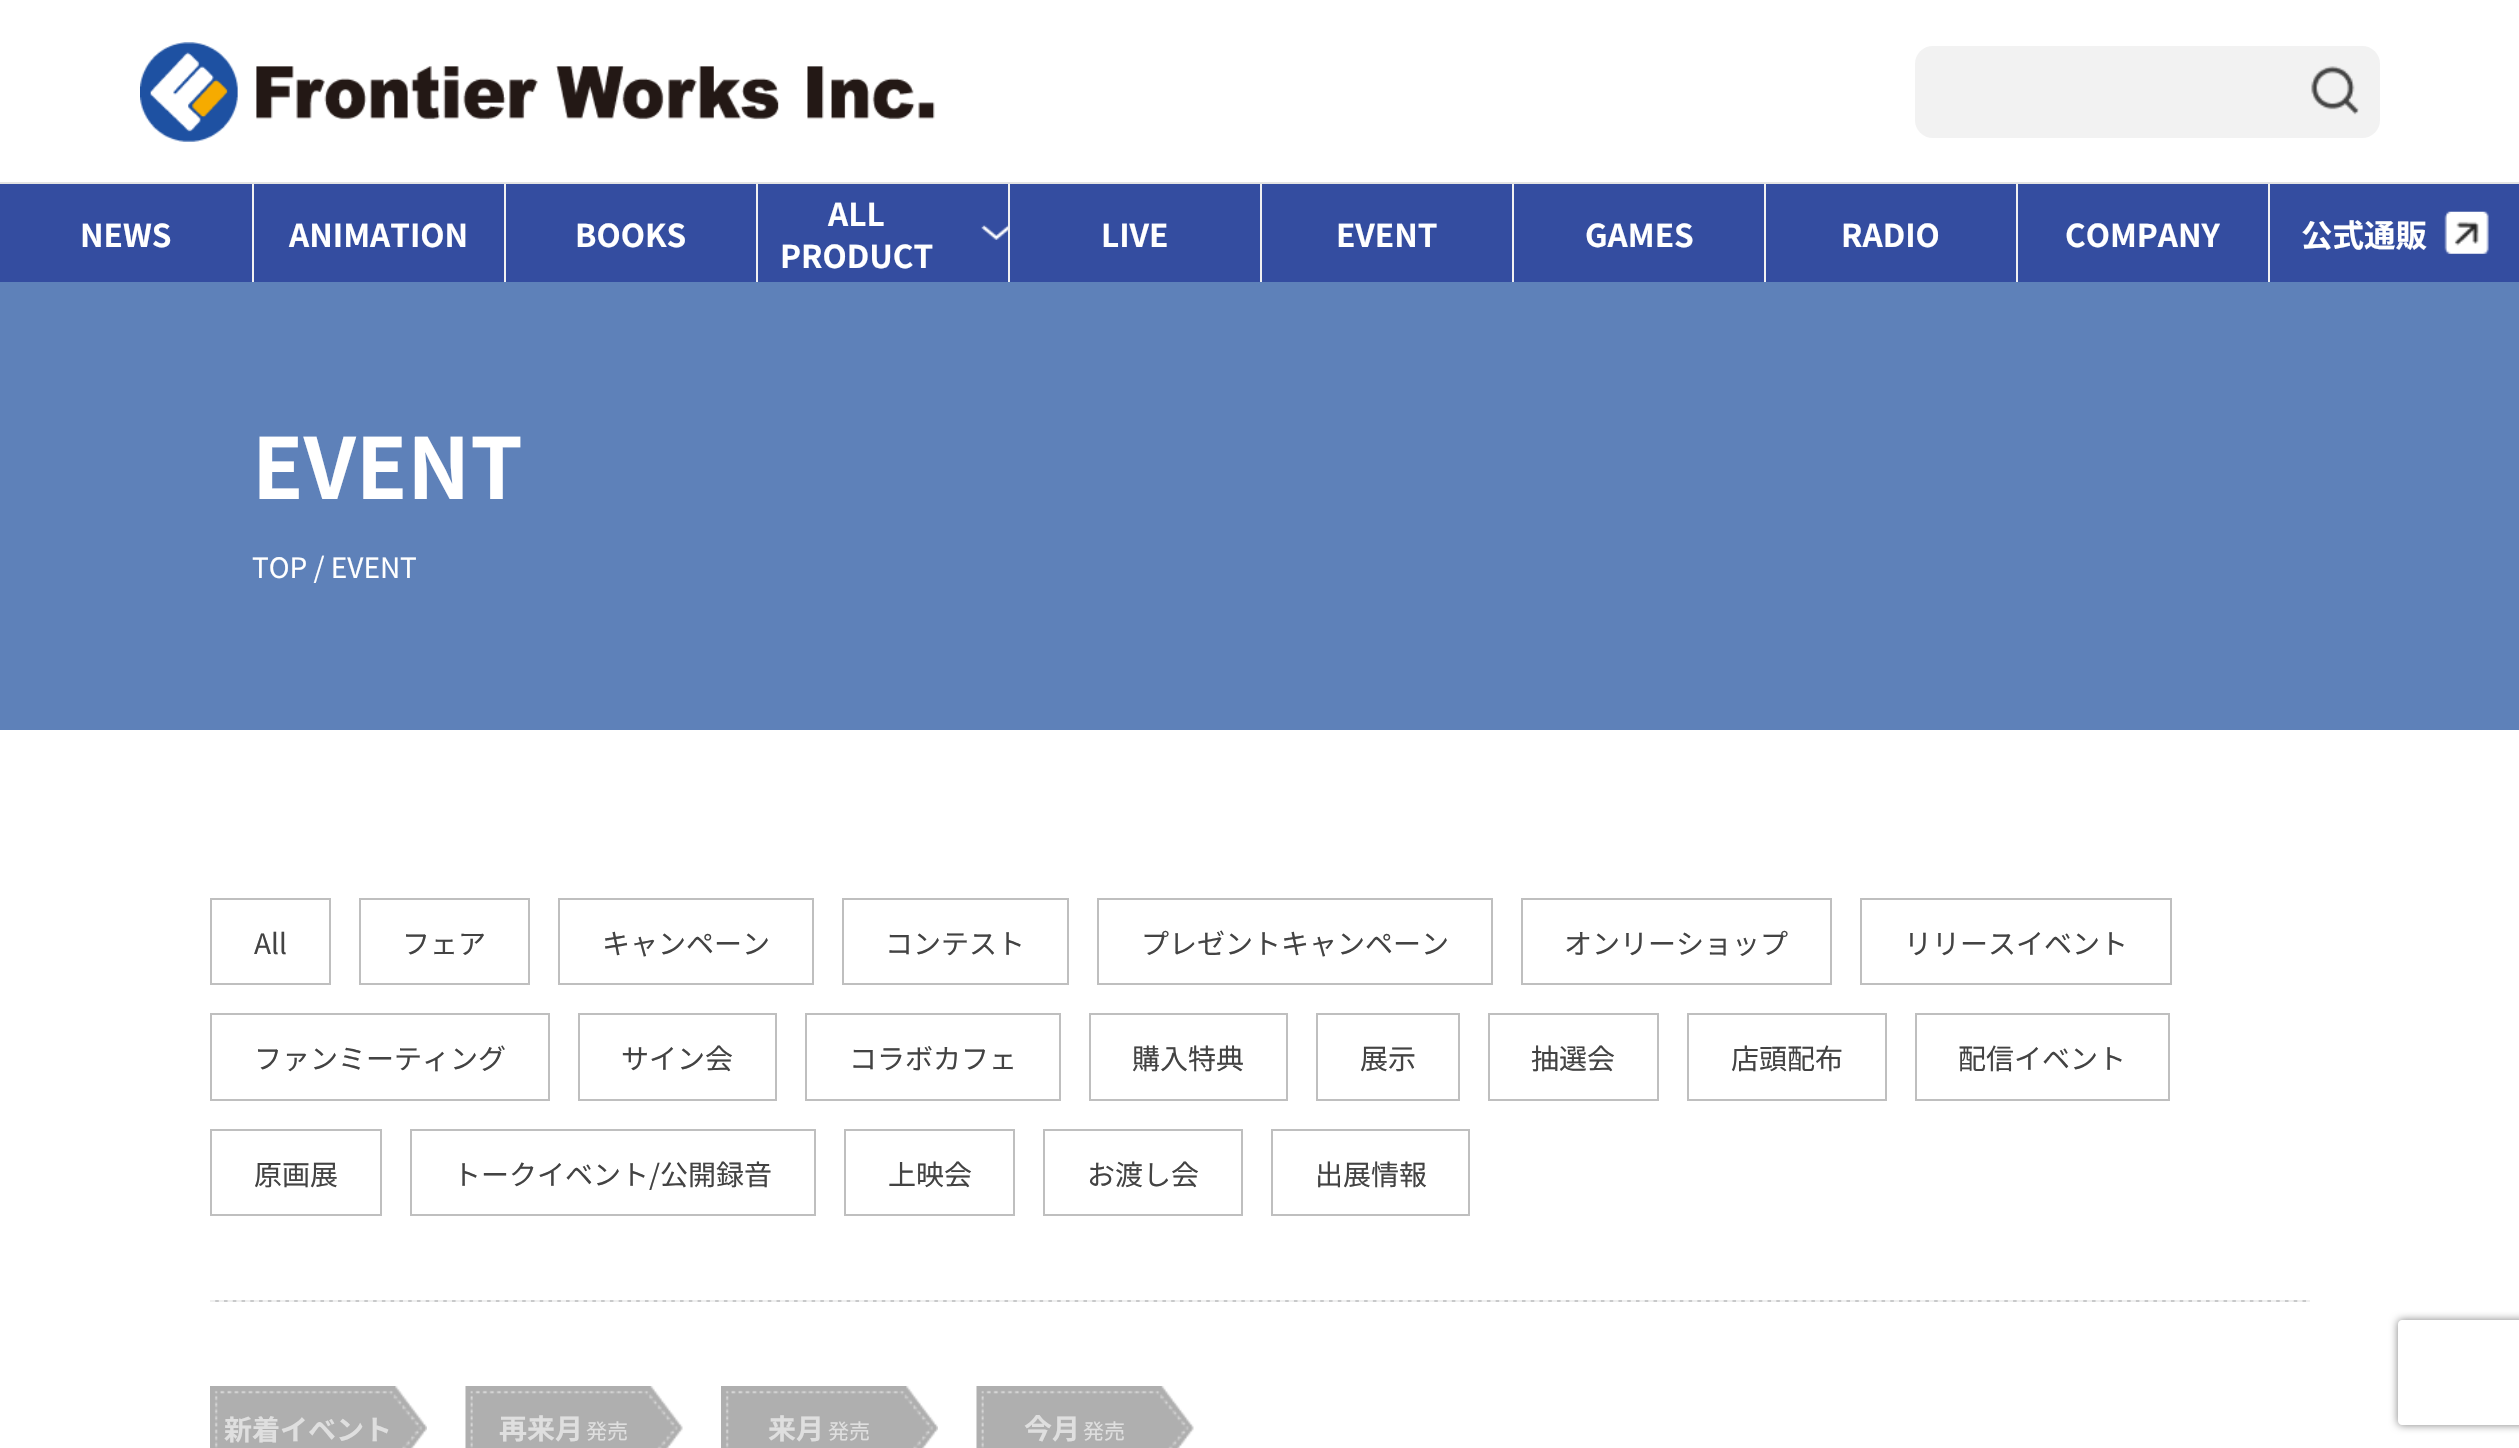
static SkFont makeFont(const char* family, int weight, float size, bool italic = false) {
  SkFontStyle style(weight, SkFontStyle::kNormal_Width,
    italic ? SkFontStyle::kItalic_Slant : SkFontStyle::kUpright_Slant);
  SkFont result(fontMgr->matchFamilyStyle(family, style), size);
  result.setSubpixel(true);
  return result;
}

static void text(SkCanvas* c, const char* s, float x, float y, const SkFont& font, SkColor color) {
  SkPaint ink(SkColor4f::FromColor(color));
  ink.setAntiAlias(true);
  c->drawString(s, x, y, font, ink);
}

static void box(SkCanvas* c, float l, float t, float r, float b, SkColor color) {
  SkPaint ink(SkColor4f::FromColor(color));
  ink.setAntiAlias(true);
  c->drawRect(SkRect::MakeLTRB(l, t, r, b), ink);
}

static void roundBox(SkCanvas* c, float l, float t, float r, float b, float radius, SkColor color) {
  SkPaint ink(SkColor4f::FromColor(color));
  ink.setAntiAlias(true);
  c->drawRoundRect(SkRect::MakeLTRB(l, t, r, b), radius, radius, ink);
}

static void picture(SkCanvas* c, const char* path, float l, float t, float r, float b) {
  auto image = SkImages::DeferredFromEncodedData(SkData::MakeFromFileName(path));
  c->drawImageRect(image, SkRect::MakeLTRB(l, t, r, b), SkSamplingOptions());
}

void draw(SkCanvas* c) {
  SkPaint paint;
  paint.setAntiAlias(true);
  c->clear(0xffffffff);
  picture(c, "img_01.png", 140, 42, 935, 142);
  roundBox(c, 1915, 46, 2380, 138, 18, 0xfff2f2f2);
  picture(c, "img_02.png", 2311, 66, 2359, 115);
  box(c, 0, 184, 2519, 282, 0xff344da0);
  box(c, 0, 182, 756, 184, 0xffe3e3e3);
  SkFont face1 = makeFont("Noto Sans JP", 700, 31.5f);
  text(c, "NEWS", 80, 247, face1, 0xffffffff);
  box(c, 252, 184, 254, 282, 0xfff1f1f1);
  text(c, "ANIMATION", 289, 247, face1, 0xffffffff);
  box(c, 504, 184, 506, 282, 0xfff1f1f1);
  text(c, "BOOKS", 575, 247, face1, 0xffffffff);
  box(c, 756, 184, 758, 282, 0xfff1f1f1);
  text(c, "ALL", 828, 226, face1, 0xffffffff);
  picture(c, "img_03.png", 981, 225, 1008, 240);
  text(c, "PRODUCT", 780, 268, face1, 0xffffffff);
  box(c, 756, 182, 2519, 184, 0xffe3e3e3);
  box(c, 1008, 184, 1010, 282, 0xfff1f1f1);
  text(c, "LIVE", 1101, 247, face1, 0xffffffff);
  box(c, 1260, 184, 1262, 282, 0xfff1f1f1);
  text(c, "EVENT", 1336, 247, face1, 0xffffffff);
  box(c, 1512, 184, 1514, 282, 0xfff1f1f1);
  text(c, "GAMES", 1585, 247, face1, 0xffffffff);
  box(c, 1764, 184, 1766, 282, 0xfff1f1f1);
  text(c, "RADIO", 1841, 247, face1, 0xffffffff);
  box(c, 2016, 184, 2018, 282, 0xfff1f1f1);
  text(c, "COMPANY", 2065, 247, face1, 0xffffffff);
  box(c, 2268, 184, 2270, 282, 0xfff1f1f1);
  text(c, "公式通販", 2301, 247, face1, 0xffffffff);
  picture(c, "img_04.png", 2444, 211, 2489, 254);
  box(c, 0, 282, 2519, 730, 0xff5e81b9);
  SkFont face2 = makeFont("Noto Sans JP", 700, 84);
  text(c, "EVENT", 252, 499, face2, 0xffffffff);
  SkFont face3 = makeFont("Noto Sans JP", 400, 28);
  text(c, "TOP / EVENT", 252, 578, face3, 0xffffffff);
  paint.setStyle(SkPaint::kStroke_Style);
  paint.setStrokeWidth(2);
  paint.setColor(0xffbfbfbf);
  c->drawRect(SkRect::MakeLTRB(211, 899, 330, 984), paint);
  text(c, "All", 254, 954, face3, 0xff434343);
  c->drawRect(SkRect::MakeLTRB(360, 899, 529, 984), paint);
  text(c, "フェア", 402, 954, face3, 0xff434343);
  c->drawRect(SkRect::MakeLTRB(559, 899, 813, 984), paint);
  text(c, "キャンペーン", 602, 954, face3, 0xff434343);
  c->drawRect(SkRect::MakeLTRB(843, 899, 1068, 984), paint);
  text(c, "コンテスト", 885, 954, face3, 0xff434343);
  c->drawRect(SkRect::MakeLTRB(1098, 899, 1492, 984), paint);
  text(c, "プレゼントキャンペーン", 1141, 954, face3, 0xff434343);
  c->drawRect(SkRect::MakeLTRB(1522, 899, 1831, 984), paint);
  text(c, "オンリーショップ", 1564, 954, face3, 0xff434343);
  c->drawRect(SkRect::MakeLTRB(1861, 899, 2171, 984), paint);
  text(c, "リリースイベント", 1904, 954, face3, 0xff434343);
  c->drawRect(SkRect::MakeLTRB(211, 1014, 549, 1100), paint);
  text(c, "ファンミーティング", 254, 1069, face3, 0xff434343);
  c->drawRect(SkRect::MakeLTRB(579, 1014, 776, 1100), paint);
  text(c, "サイン会", 621, 1069, face3, 0xff434343);
  c->drawRect(SkRect::MakeLTRB(806, 1014, 1060, 1100), paint);
  text(c, "コラボカフェ", 849, 1069, face3, 0xff434343);
  c->drawRect(SkRect::MakeLTRB(1090, 1014, 1287, 1100), paint);
  text(c, "購入特典", 1132, 1069, face3, 0xff434343);
  c->drawRect(SkRect::MakeLTRB(1317, 1014, 1459, 1100), paint);
  text(c, "展示", 1360, 1069, face3, 0xff434343);
  c->drawRect(SkRect::MakeLTRB(1489, 1014, 1658, 1100), paint);
  text(c, "抽選会", 1531, 1069, face3, 0xff434343);
  c->drawRect(SkRect::MakeLTRB(1688, 1014, 1886, 1100), paint);
  text(c, "店頭配布", 1731, 1069, face3, 0xff434343);
  c->drawRect(SkRect::MakeLTRB(1916, 1014, 2169, 1100), paint);
  text(c, "配信イベント", 1958, 1069, face3, 0xff434343);
  c->drawRect(SkRect::MakeLTRB(211, 1130, 381, 1215), paint);
  text(c, "原画展", 254, 1185, face3, 0xff434343);
  c->drawRect(SkRect::MakeLTRB(411, 1130, 815, 1215), paint);
  text(c, "トークイベント/公開録音", 453, 1185, face3, 0xff434343);
  c->drawRect(SkRect::MakeLTRB(845, 1130, 1014, 1215), paint);
  text(c, "上映会", 888, 1185, face3, 0xff434343);
  c->drawRect(SkRect::MakeLTRB(1044, 1130, 1242, 1215), paint);
  text(c, "お渡し会", 1087, 1185, face3, 0xff434343);
  c->drawRect(SkRect::MakeLTRB(1272, 1130, 1469, 1215), paint);
  text(c, "出展情報", 1315, 1185, face3, 0xff434343);
  box(c, 210, 1300, 2310, 1302, 0xffc8c9ca);
  paint.setStrokeWidth(1.8f);
  paint.setColor(0xffefefef);
  paint.setPathEffect(SkDashPathEffect::Make({{5.25f, 3.52f}}, 0));
  c->drawPath(SkPathBuilder().moveTo(210, 1301).lineTo(2310, 1301).detach(), paint);
  paint.setPathEffect(nullptr);
  picture(c, "img_05.png", 210, 1386, 427, 1448);
  SkFont face4 = makeFont("Noto Sans JP", 700, 28);
  text(c, "新着イベント", 224, 1440, face4, 0xffdfdfdf);
  picture(c, "img_06.png", 465, 1386, 683, 1448);
  text(c, "再来月", 499, 1439, face4, 0xffdfdfdf);
  SkFont face5 = makeFont("Noto Sans JP", 400, 21);
  text(c, "発売", 586, 1439, face5, 0xffdfdfdf);
  picture(c, "img_05.png", 721, 1386, 938, 1448);
  text(c, "来月", 768, 1439, face4, 0xffdfdfdf);
  text(c, "発売", 828, 1439, face5, 0xffdfdfdf);
  picture(c, "img_07.png", 976, 1386, 1194, 1448);
  text(c, "今月", 1024, 1439, face4, 0xffdfdfdf);
  text(c, "発売", 1083, 1439, face5, 0xffdfdfdf);
  c->save();
  c->clipPath(SkPathBuilder(SkPathFillType::kEvenOdd).moveTo(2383, 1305).lineTo(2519, 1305).lineTo(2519, 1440).lineTo(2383, 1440).close().moveTo(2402, 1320).lineTo(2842, 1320).cubicTo(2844, 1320, 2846, 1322, 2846, 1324).lineTo(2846, 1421).cubicTo(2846, 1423, 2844, 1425, 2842, 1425).lineTo(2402, 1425).cubicTo(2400, 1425, 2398, 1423, 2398, 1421).lineTo(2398, 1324).cubicTo(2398, 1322, 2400, 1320, 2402, 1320).close().detach(), true);
  paint.setStyle(SkPaint::kFill_Style);
  paint.setColor(0xff808080);
  paint.setMaskFilter(SkMaskFilter::MakeBlur(kNormal_SkBlurStyle, 4.5f));
  c->drawRoundRect(SkRect::MakeLTRB(2398, 1320, 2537, 1425), 4, 4, paint);
  paint.setMaskFilter(nullptr);
  c->restore();
}
